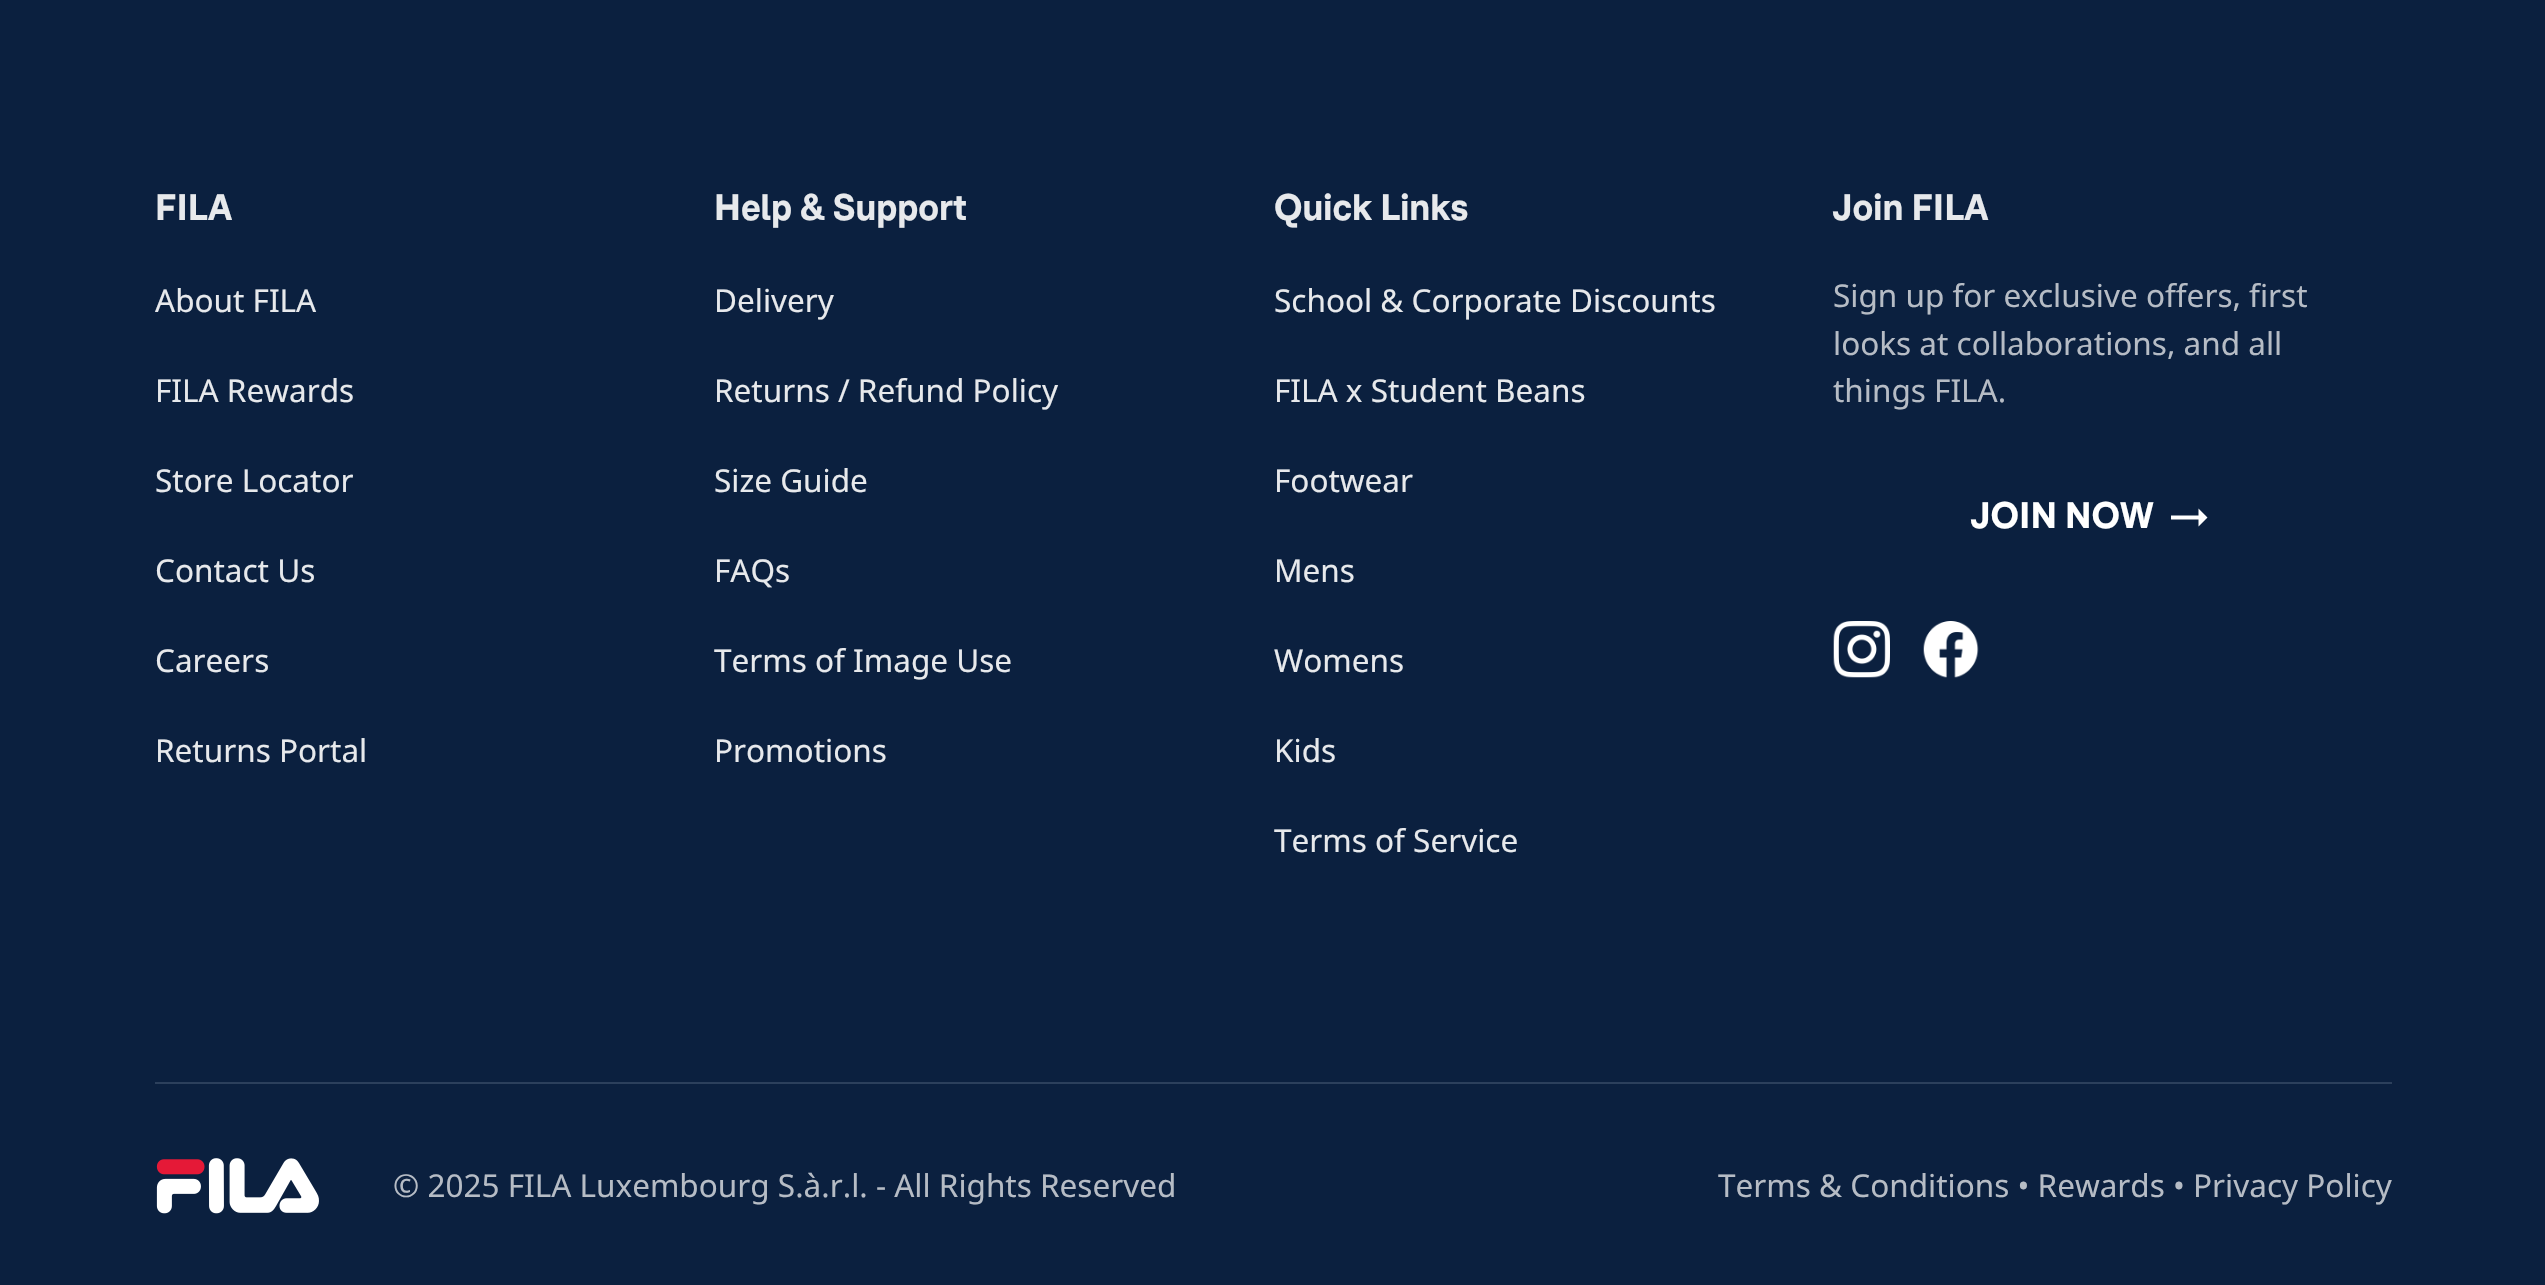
static SkFont makeFont(const char* family, int weight, float size, bool italic = false) {
  SkFontStyle style(weight, SkFontStyle::kNormal_Width,
    italic ? SkFontStyle::kItalic_Slant : SkFontStyle::kUpright_Slant);
  SkFont result(fontMgr->matchFamilyStyle(family, style), size);
  result.setSubpixel(true);
  return result;
}

static void text(SkCanvas* c, const char* s, float x, float y, const SkFont& font, SkColor color) {
  SkPaint ink(SkColor4f::FromColor(color));
  ink.setAntiAlias(true);
  c->drawString(s, x, y, font, ink);
}

static void box(SkCanvas* c, float l, float t, float r, float b, SkColor color) {
  SkPaint ink(SkColor4f::FromColor(color));
  ink.setAntiAlias(true);
  c->drawRect(SkRect::MakeLTRB(l, t, r, b), ink);
}

static void picture(SkCanvas* c, const char* path, float l, float t, float r, float b) {
  auto image = SkImages::DeferredFromEncodedData(SkData::MakeFromFileName(path));
  c->drawImageRect(image, SkRect::MakeLTRB(l, t, r, b), SkSamplingOptions());
}

void draw(SkCanvas* c) {
  SkPaint paint;
  paint.setAntiAlias(true);
  c->clear(0xff0b203f);
  SkFont face1 = makeFont("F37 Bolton", 700, 36);
  text(c, "FILA", 155, 220, face1, 0xffe7e9ec);
  SkFont face2 = makeFont("Noto Sans", 400, 31.5f);
  text(c, "About FILA", 155, 312, face2, 0xffe7e9ec);
  text(c, "FILA Rewards", 155, 402, face2, 0xffe7e9ec);
  text(c, "Store Locator", 155, 492, face2, 0xffe7e9ec);
  text(c, "Contact Us", 155, 582, face2, 0xffe7e9ec);
  text(c, "Careers", 155, 672, face2, 0xffe7e9ec);
  text(c, "Returns Portal", 155, 762, face2, 0xffe7e9ec);
  text(c, "Help & Support", 714, 220, face1, 0xffe7e9ec);
  text(c, "Delivery", 714, 312, face2, 0xffe7e9ec);
  text(c, "Returns / Refund Policy", 714, 402, face2, 0xffe7e9ec);
  text(c, "Size Guide", 714, 492, face2, 0xffe7e9ec);
  text(c, "FAQs", 714, 582, face2, 0xffe7e9ec);
  text(c, "Terms of Image Use", 714, 672, face2, 0xffe7e9ec);
  text(c, "Promotions", 714, 762, face2, 0xffe7e9ec);
  text(c, "Quick Links", 1274, 220, face1, 0xffe7e9ec);
  text(c, "School & Corporate Discounts", 1274, 312, face2, 0xffe7e9ec);
  text(c, "FILA x Student Beans", 1274, 402, face2, 0xffe7e9ec);
  text(c, "Footwear", 1274, 492, face2, 0xffe7e9ec);
  text(c, "Mens", 1274, 582, face2, 0xffe7e9ec);
  text(c, "Womens", 1274, 672, face2, 0xffe7e9ec);
  text(c, "Kids", 1274, 762, face2, 0xffe7e9ec);
  text(c, "Terms of Service", 1274, 852, face2, 0xffe7e9ec);
  text(c, "Join FILA", 1833, 220, face1, 0xffe7e9ec);
  text(c, "Sign up for exclusive offers, first", 1833, 307, face2, 0xffb6bcc5);
  text(c, "looks at collaborations, and all", 1833, 355, face2, 0xffb6bcc5);
  text(c, "things FILA.", 1833, 402, face2, 0xffb6bcc5);
  text(c, "JOIN NOW", 1971, 528, face1, 0xffffffff);
  paint.setColor(0xffffffff);
  c->drawPath(SkPathBuilder().moveTo(2198.5f, 515.5f).lineTo(2198.5f, 508.5f).lineTo(2207.5f, 517.5f).lineTo(2198.5f, 526.5f).lineTo(2198.5f, 519.5f).lineTo(2171, 519.5f).lineTo(2171, 515.5f).close().detach(), paint);
  picture(c, "img_01.png", 1833, 621, 1890, 678);
  picture(c, "img_02.png", 1923, 621, 1979, 678);
  box(c, 155, 1082, 2392, 1084, 0xff2c405c);
  picture(c, "img_03.png", 156, 1158, 319, 1214);
  text(c, "© 2025 FILA Luxembourg S.à.r.l. - All Rights Reserved", 393, 1197, face2, 0xffb6bcc5);
  text(c, "Terms & Conditions • Rewards • Privacy Policy", 1718, 1197, face2, 0xffb6bcc5);
}
